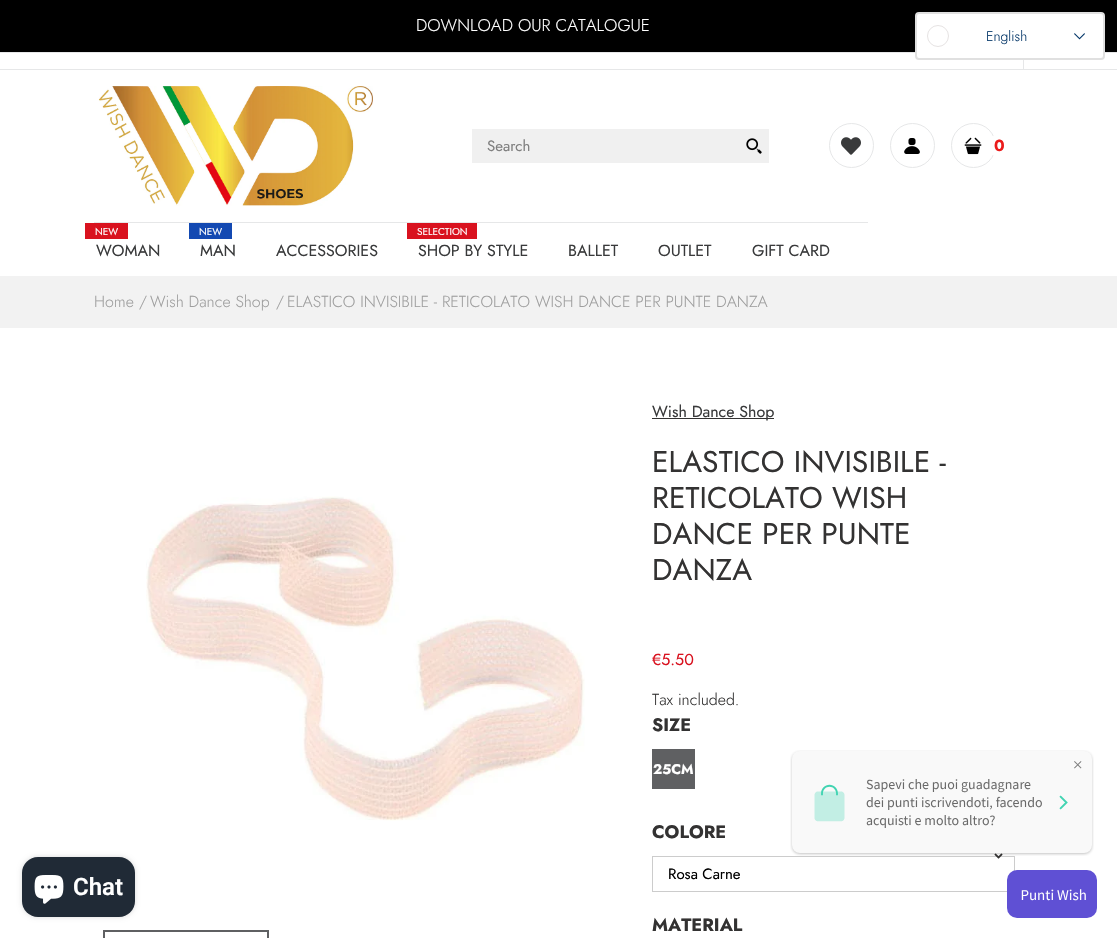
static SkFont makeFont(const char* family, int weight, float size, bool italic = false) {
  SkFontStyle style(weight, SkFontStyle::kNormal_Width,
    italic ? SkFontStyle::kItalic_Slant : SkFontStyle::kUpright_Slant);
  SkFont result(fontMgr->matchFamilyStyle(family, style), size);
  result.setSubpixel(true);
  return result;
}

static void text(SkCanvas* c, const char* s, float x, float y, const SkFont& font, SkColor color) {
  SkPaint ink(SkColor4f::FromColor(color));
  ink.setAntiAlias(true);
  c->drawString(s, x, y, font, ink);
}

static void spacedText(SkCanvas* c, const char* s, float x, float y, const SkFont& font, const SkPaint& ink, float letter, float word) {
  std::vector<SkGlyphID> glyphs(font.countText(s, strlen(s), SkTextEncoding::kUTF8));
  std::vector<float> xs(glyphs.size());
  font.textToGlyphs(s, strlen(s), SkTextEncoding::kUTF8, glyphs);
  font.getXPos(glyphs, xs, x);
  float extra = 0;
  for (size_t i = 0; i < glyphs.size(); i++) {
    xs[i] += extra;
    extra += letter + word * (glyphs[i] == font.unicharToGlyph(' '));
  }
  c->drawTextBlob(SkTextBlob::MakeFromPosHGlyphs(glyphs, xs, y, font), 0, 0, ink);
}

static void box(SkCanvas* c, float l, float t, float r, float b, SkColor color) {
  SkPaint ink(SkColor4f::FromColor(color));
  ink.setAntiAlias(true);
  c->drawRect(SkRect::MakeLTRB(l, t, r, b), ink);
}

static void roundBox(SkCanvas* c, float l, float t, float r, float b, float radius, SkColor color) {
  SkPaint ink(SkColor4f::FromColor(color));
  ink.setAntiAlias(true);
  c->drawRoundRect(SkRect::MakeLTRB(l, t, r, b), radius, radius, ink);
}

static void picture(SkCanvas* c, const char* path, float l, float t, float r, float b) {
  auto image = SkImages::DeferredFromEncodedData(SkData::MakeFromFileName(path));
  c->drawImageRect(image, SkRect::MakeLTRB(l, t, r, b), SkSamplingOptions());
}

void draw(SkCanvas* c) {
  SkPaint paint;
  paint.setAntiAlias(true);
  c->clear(0xffffffff);
  box(c, 0, 0, 1117, 52, 0xff000000);
  SkFont face1 = makeFont("Jost", 300, 17);
  text(c, "DOWNLOAD OUR CATALOGUE", 416, 31, face1, 0xffffffff);
  box(c, 0, 52, 1117, 53, 0xffe6e7e8);
  box(c, 1023, 53, 1024, 69, 0xffe6e7e8);
  paint.setColor(0xffffffff);
  c->drawRoundRect(SkRect::MakeLTRB(916, 13, 1104, 59), 3, 3, paint);
  paint.setStyle(SkPaint::kStroke_Style);
  paint.setStrokeWidth(2);
  paint.setColor(0xffe0e0e0);
  c->drawRoundRect(SkRect::MakeLTRB(916, 13, 1104, 59), 3, 3, paint);
  paint.setStrokeWidth(1);
  paint.setColor(0xffe6e3e3);
  c->drawCircle(938, 36, 10.5f, paint);
  SkFont face2 = makeFont("Jost", 300, 14);
  text(c, "English", 986, 41, face2, 0xff003366);
  picture(c, "img_01.png", 1074, 33, 1085, 40);
  box(c, 0, 69, 1117, 70, 0xffe6e7e8);
  picture(c, "img_02.png", 98, 86, 373, 206);
  box(c, 472, 129, 769, 163, 0xfff0f0f0);
  SkFont face3 = makeFont("Jost", 400, 15);
  text(c, "Search", 487, 151, face3, 0xff808080);
  picture(c, "img_03.png", 746, 138, 762, 154);
  paint.setColor(0xffe6e7e8);
  c->drawCircle(851.5f, 145.5f, 22, paint);
  picture(c, "img_04.png", 841, 137, 861, 155);
  c->drawCircle(912.5f, 145.5f, 22, paint);
  picture(c, "img_05.png", 904, 138, 920, 154);
  c->drawCircle(973.5f, 145.5f, 22, paint);
  picture(c, "img_06.png", 964, 137, 982, 155);
  paint.setStyle(SkPaint::kFill_Style);
  paint.setColor(0xffffffff);
  c->drawCircle(999.5f, 145.5f, 11.5f, paint);
  SkFont face4 = makeFont("Jost", 700, 16);
  text(c, "0", 994, 151, face4, 0xffeb1b1b);
  box(c, 94, 222, 868, 223, 0xffe6e7e8);
  box(c, 85, 223, 128, 239, 0xffd9121f);
  SkFont face5 = makeFont("Jost", 400, 10);
  text(c, "NEW", 95, 235, face5, 0xffffffff);
  SkFont face6 = makeFont("Jost", 400, 16);
  text(c, "WOMAN", 96, 256, face6, 0xff393a3b);
  box(c, 189, 223, 232, 239, 0xff1349b2);
  text(c, "NEW", 199, 235, face5, 0xffffffff);
  text(c, "MAN", 200, 256, face6, 0xff393a3b);
  text(c, "ACCESSORIES", 276, 256, face6, 0xff393a3b);
  box(c, 407, 223, 477, 239, 0xffd9121f);
  text(c, "SELECTION", 417, 235, face5, 0xffffffff);
  text(c, "SHOP BY STYLE", 418, 256, face6, 0xff393a3b);
  text(c, "BALLET", 568, 256, face6, 0xff393a3b);
  text(c, "OUTLET", 658, 256, face6, 0xff393a3b);
  text(c, "GIFT CARD", 752, 256, face6, 0xff393a3b);
  box(c, 0, 276, 1117, 328, 0xfff2f2f2);
  SkFont face7 = makeFont("Jost", 300, 16);
  text(c, "Home", 94, 307, face7, 0xff9e9e9e);
  text(c, "/", 139, 307, face7, 0xff9e9e9e);
  text(c, "Wish Dance Shop", 150, 307, face7, 0xff9e9e9e);
  text(c, "/", 276, 307, face7, 0xff9e9e9e);
  text(c, "ELASTICO INVISIBILE - RETICOLATO WISH DANCE PER PUNTE DANZA", 287, 307, face7, 0xff9e9e9e);
  picture(c, "img_07.png", 146, 496, 585, 821);
  paint.setStyle(SkPaint::kStroke_Style);
  paint.setStrokeWidth(2);
  paint.setColor(0xff5f6062);
  c->drawRect(SkRect::MakeLTRB(104, 931, 268, 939), paint);
  box(c, 652, 418, 774, 419, 0xff333232);
  text(c, "Wish Dance Shop", 652, 417, face6, 0xff393a3b);
  SkFont face8 = makeFont("Jost", 400, 30);
  paint.setStyle(SkPaint::kFill_Style);
  paint.setColor(0xff333232);
  spacedText(c, "ELASTICO INVISIBILE -", 652, 472, face8, paint, 0.1f, 0);
  spacedText(c, "RETICOLATO WISH", 652, 508, face8, paint, 0.1f, 0);
  spacedText(c, "DANCE PER PUNTE", 652, 544, face8, paint, 0.1f, 0);
  spacedText(c, "DANZA", 652, 580, face8, paint, 0.1f, 0);
  text(c, "€5.50", 652, 665, face6, 0xffd9121f);
  text(c, "Tax included.", 652, 705, face7, 0xff333232);
  SkFont face9 = makeFont("Jost", 700, 18);
  text(c, "SIZE", 652, 731, face9, 0xff333232);
  box(c, 652, 749, 695, 789, 0xff5f6062);
  SkFont face10 = makeFont("Jost", 700, 14);
  text(c, "25CM", 653, 774, face10, 0xffffffff);
  text(c, "COLORE", 652, 838, face9, 0xff333232);
  paint.setStyle(SkPaint::kStroke_Style);
  paint.setStrokeWidth(1);
  paint.setColor(0xffcccccc);
  c->drawRect(SkRect::MakeLTRB(652.5f, 856.5f, 1014.5f, 891.5f), paint);
  picture(c, "img_08.png", 994, 853, 1003, 859);
  text(c, "Rosa Carne", 668, 879, face3, 0xff000000);
  text(c, "MATERIAL", 652, 931, face9, 0xff333232);
  picture(c, "img_09.png", 790, 750, 1094, 856);
  paint.setStyle(SkPaint::kFill_Style);
  paint.setColor(0x26000000);
  paint.setMaskFilter(SkMaskFilter::MakeBlur(kNormal_SkBlurStyle, 2.5f));
  c->drawRoundRect(SkRect::MakeLTRB(22, 857, 135, 917), 16, 16, paint);
  paint.setMaskFilter(nullptr);
  roundBox(c, 22, 857, 135, 917, 16, 0xff202a36);
  picture(c, "img_10.png", 34, 875, 64, 904);
  SkFont face11 = makeFont("Roboto", 600, 24);
  text(c, "Chat", 73, 895, face11, 0xffffffff);
  picture(c, "img_11.png", 1007, 870, 1097, 918);
}
